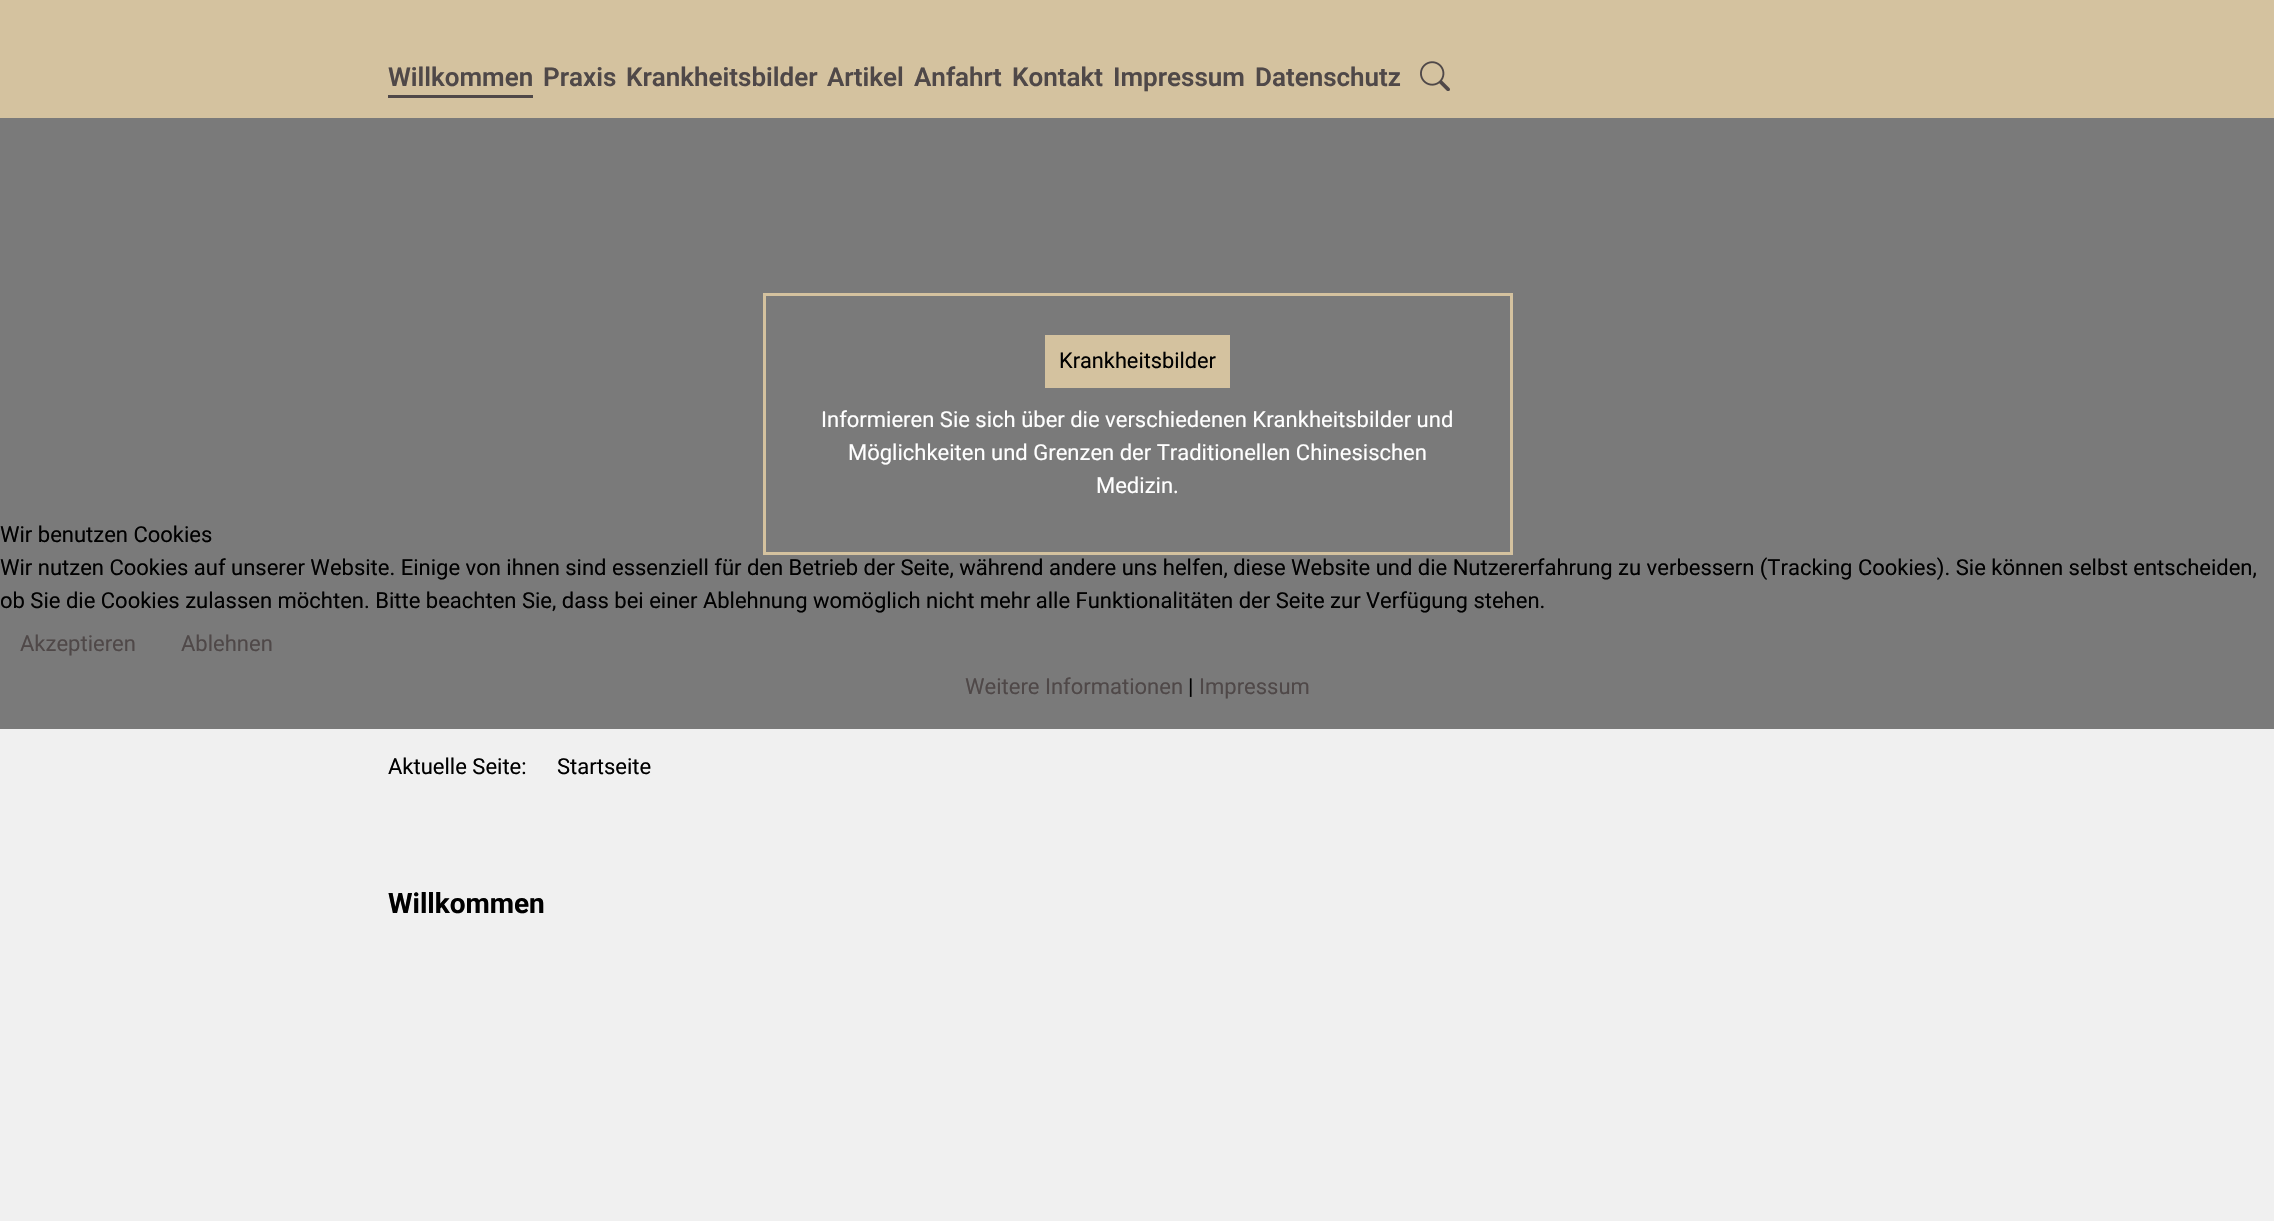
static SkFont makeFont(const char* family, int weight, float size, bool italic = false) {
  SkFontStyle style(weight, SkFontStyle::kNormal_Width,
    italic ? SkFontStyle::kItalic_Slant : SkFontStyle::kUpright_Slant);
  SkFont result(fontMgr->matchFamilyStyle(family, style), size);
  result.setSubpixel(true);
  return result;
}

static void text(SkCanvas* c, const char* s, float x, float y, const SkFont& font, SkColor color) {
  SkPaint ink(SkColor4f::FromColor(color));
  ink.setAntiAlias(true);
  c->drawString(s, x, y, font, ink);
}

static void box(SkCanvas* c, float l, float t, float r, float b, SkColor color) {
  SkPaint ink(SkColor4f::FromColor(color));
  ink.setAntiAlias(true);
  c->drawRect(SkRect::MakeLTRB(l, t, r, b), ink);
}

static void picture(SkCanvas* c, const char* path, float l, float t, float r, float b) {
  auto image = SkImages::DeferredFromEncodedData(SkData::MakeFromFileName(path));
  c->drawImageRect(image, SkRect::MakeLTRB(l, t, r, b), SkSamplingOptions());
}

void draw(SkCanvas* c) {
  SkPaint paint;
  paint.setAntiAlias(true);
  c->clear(0xfff0f0f0);
  box(c, 0, 0, 2274, 118, 0xffd4c29f);
  SkFont face1 = makeFont("Roboto", 600, 26);
  text(c, "Willkommen", 388, 86, face1, 0xff4f4848);
  box(c, 388, 95, 533, 98, 0xff4f4848);
  text(c, "Praxis", 543, 86, face1, 0xff4f4848);
  text(c, "Krankheitsbilder", 626, 86, face1, 0xff4f4848);
  text(c, "Artikel", 827, 86, face1, 0xff4f4848);
  text(c, "Anfahrt", 914, 86, face1, 0xff4f4848);
  text(c, "Kontakt", 1012, 86, face1, 0xff4f4848);
  text(c, "Impressum", 1113, 86, face1, 0xff4f4848);
  text(c, "Datenschutz", 1255, 86, face1, 0xff4f4848);
  picture(c, "img_01.png", 1420, 61, 1450, 91);
  box(c, 0, 118, 2274, 729, 0xff7a7a7a);
  paint.setStyle(SkPaint::kStroke_Style);
  paint.setStrokeWidth(3);
  paint.setColor(0xffd4c29f);
  c->drawRect(SkRect::MakeLTRB(764.5f, 294.5f, 1511.5f, 553.5f), paint);
  box(c, 1045, 335, 1230, 388, 0xffd4c29f);
  SkFont face2 = makeFont("Roboto", 400, 21.75f);
  text(c, "Krankheitsbilder", 1059, 368, face2, 0xff000000);
  SkFont face3 = makeFont("Roboto", 400, 22);
  text(c, "Informieren Sie sich über die verschiedenen Krankheitsbilder und", 821, 427, face3, 0xffffffff);
  text(c, "Möglichkeiten und Grenzen der Traditionellen Chinesischen", 848, 460, face3, 0xffffffff);
  text(c, "Medizin.", 1096, 493, face3, 0xffffffff);
  text(c, "Wir benutzen Cookies", 0, 542, face3, 0xff000000);
  text(c, "Wir nutzen Cookies auf unserer Website. Einige von ihnen sind essenziell für den Betrieb der Seite, während andere uns helfen, diese Website und die Nutzererfahrung zu verbessern (Tracking Cookies). Sie können selbst entscheiden,", 0, 575, face3, 0xff000000);
  text(c, "ob Sie die Cookies zulassen möchten. Bitte beachten Sie, dass bei einer Ablehnung womöglich nicht mehr alle Funktionalitäten der Seite zur Verfügung stehen.", 0, 608, face3, 0xff000000);
  text(c, "Akzeptieren", 20, 651, face3, 0xff4f4848);
  text(c, "Ablehnen", 181, 651, face3, 0xff4f4848);
  text(c, "Weitere Informationen", 965, 694, face3, 0xff4f4848);
  text(c, "|", 1188, 694, face3, 0xff000000);
  text(c, "Impressum", 1199, 694, face3, 0xff4f4848);
  text(c, "Aktuelle Seite:", 388, 774, face3, 0xff000000);
  text(c, "Startseite", 557, 774, face3, 0xff000000);
  SkFont face4 = makeFont("Roboto", 700, 28);
  text(c, "Willkommen", 388, 913, face4, 0xff000000);
}
